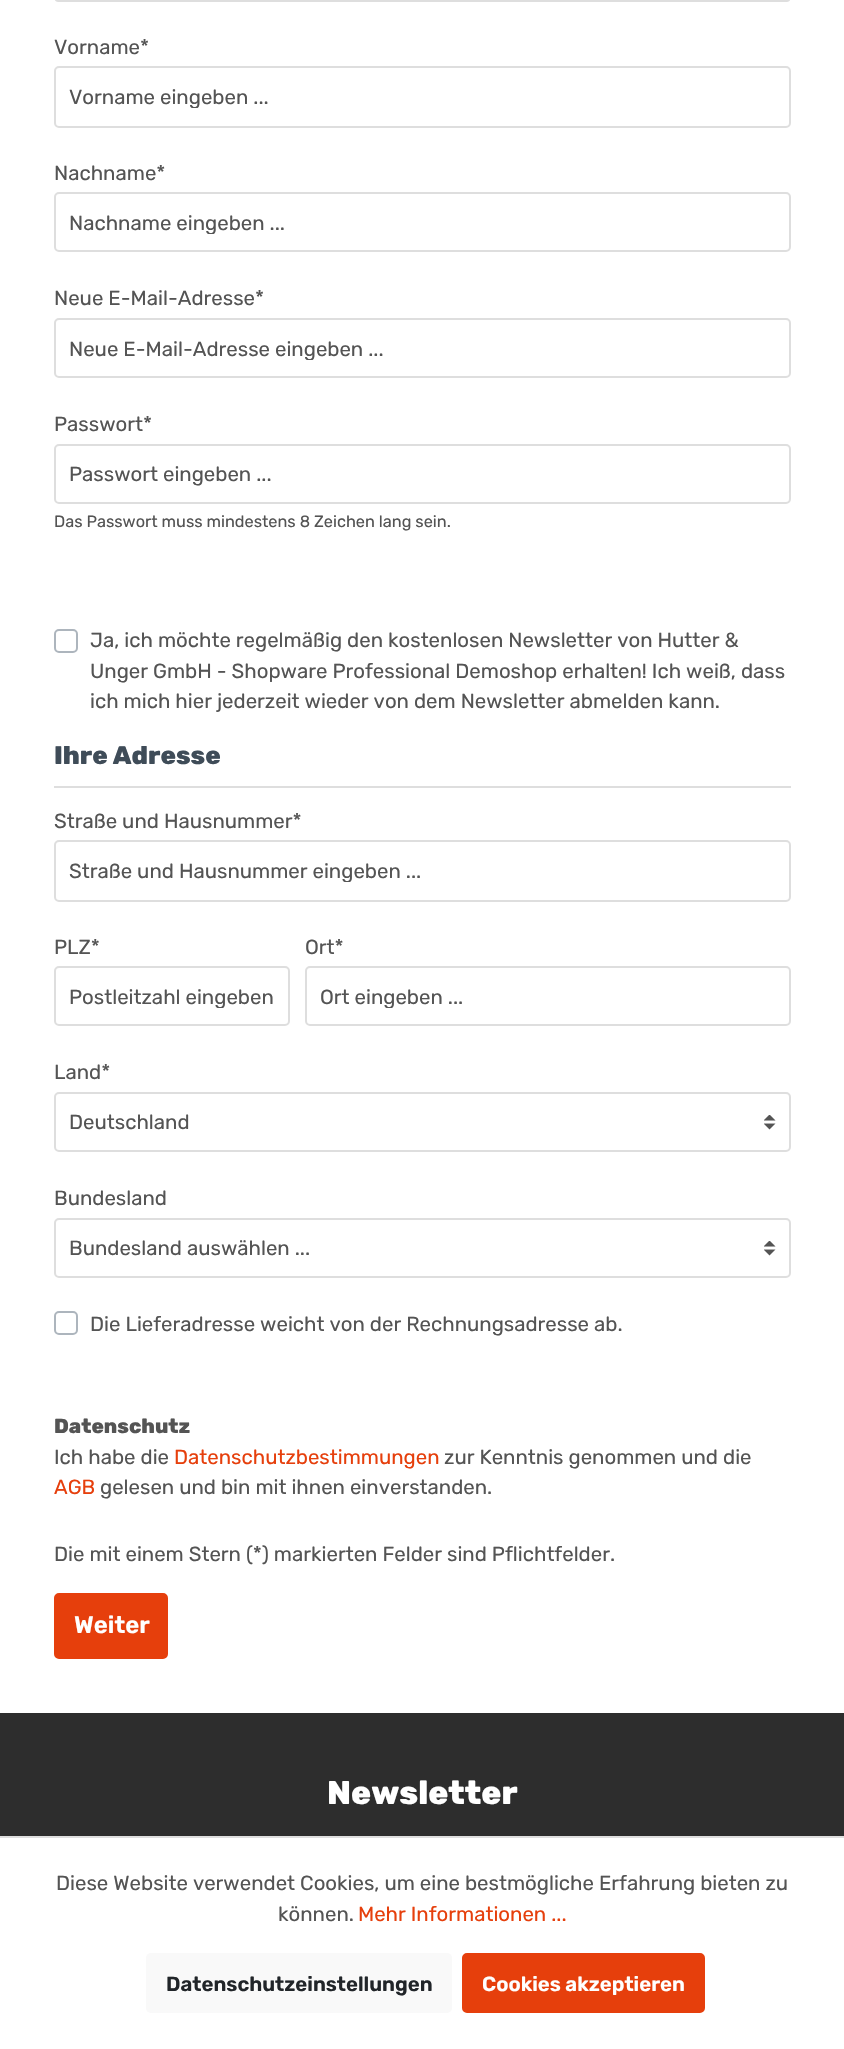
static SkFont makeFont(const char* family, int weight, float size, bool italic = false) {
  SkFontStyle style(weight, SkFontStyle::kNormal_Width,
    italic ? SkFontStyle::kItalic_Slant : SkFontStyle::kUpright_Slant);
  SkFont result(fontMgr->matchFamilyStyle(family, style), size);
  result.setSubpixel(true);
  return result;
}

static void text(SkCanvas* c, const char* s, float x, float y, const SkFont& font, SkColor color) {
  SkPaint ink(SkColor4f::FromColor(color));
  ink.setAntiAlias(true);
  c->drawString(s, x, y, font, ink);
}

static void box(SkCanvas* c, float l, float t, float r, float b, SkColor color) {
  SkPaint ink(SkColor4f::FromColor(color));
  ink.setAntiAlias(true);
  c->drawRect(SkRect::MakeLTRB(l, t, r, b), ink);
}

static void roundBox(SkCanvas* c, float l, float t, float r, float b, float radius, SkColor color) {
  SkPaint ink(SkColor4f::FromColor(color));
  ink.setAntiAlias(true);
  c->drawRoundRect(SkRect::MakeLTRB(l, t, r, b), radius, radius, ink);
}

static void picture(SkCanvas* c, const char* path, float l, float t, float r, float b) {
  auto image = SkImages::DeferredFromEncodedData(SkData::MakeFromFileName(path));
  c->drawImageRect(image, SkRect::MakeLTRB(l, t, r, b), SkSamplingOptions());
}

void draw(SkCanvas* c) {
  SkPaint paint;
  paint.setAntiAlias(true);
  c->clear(0xffffffff);
  paint.setStyle(SkPaint::kStroke_Style);
  paint.setStrokeWidth(2);
  paint.setColor(0xffdedede);
  c->drawRoundRect(SkRect::MakeLTRB(55, -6, 790, 1), 4, 4, paint);
  SkFont face1 = makeFont("Rubik", 300, 20.4f);
  text(c, "Vorname*", 54, 54, face1, 0xff545454);
  c->drawRoundRect(SkRect::MakeLTRB(55, 67, 790, 127), 4, 4, paint);
  c->save();
  c->clipRect(SkRect::MakeLTRB(69, 84, 776, 108));
  text(c, "Vorname eingeben ...", 69, 104, face1, 0xff545454);
  c->restore();
  text(c, "Nachname*", 54, 180, face1, 0xff545454);
  c->drawRoundRect(SkRect::MakeLTRB(55, 193, 790, 251), 4, 4, paint);
  c->save();
  c->clipRect(SkRect::MakeLTRB(69, 210, 776, 234));
  text(c, "Nachname eingeben ...", 69, 230, face1, 0xff545454);
  c->restore();
  text(c, "Neue E-Mail-Adresse*", 54, 305, face1, 0xff545454);
  c->drawRoundRect(SkRect::MakeLTRB(55, 319, 790, 377), 4, 4, paint);
  c->save();
  c->clipRect(SkRect::MakeLTRB(69, 336, 776, 360));
  text(c, "Neue E-Mail-Adresse eingeben ...", 69, 356, face1, 0xff545454);
  c->restore();
  text(c, "Passwort*", 54, 431, face1, 0xff545454);
  c->drawRoundRect(SkRect::MakeLTRB(55, 445, 790, 503), 4, 4, paint);
  text(c, "Passwort eingeben ...", 69, 481, face1, 0xff545454);
  SkFont face2 = makeFont("Rubik", 300, 16.3f);
  text(c, "Das Passwort muss mindestens 8 Zeichen lang sein.", 54, 527, face2, 0xff545454);
  paint.setColor(0xffadb5bd);
  c->drawRoundRect(SkRect::MakeLTRB(55, 630, 77, 652), 4, 4, paint);
  text(c, "Ja, ich möchte regelmäßig den kostenlosen Newsletter von Hutter &", 90, 647, face1, 0xff545454);
  text(c, "Unger GmbH - Shopware Professional Demoshop erhalten! Ich weiß, dass", 90, 678, face1, 0xff545454);
  text(c, "ich mich hier jederzeit wieder von dem Newsletter abmelden kann.", 90, 708, face1, 0xff545454);
  box(c, 54, 786, 791, 788, 0xffdedede);
  SkFont face3 = makeFont("Rubik", 800, 25.5f);
  text(c, "Ihre Adresse", 54, 764, face3, 0xff3f4c58);
  text(c, "Straße und Hausnummer*", 54, 828, face1, 0xff545454);
  paint.setColor(0xffdedede);
  c->drawRoundRect(SkRect::MakeLTRB(55, 841, 790, 901), 4, 4, paint);
  c->save();
  c->clipRect(SkRect::MakeLTRB(69, 858, 776, 882));
  text(c, "Straße und Hausnummer eingeben ...", 69, 878, face1, 0xff545454);
  c->restore();
  text(c, "PLZ*", 54, 954, face1, 0xff545454);
  c->drawRoundRect(SkRect::MakeLTRB(55, 967, 289, 1025), 4, 4, paint);
  c->save();
  c->clipRect(SkRect::MakeLTRB(69, 984, 275, 1008));
  text(c, "Postleitzahl eingeben", 69, 1004, face1, 0xff545454);
  c->restore();
  text(c, "Ort*", 305, 954, face1, 0xff545454);
  c->drawRoundRect(SkRect::MakeLTRB(306, 967, 790, 1025), 4, 4, paint);
  c->save();
  c->clipRect(SkRect::MakeLTRB(320, 984, 776, 1008));
  text(c, "Ort eingeben ...", 320, 1004, face1, 0xff545454);
  c->restore();
  text(c, "Land*", 54, 1079, face1, 0xff545454);
  picture(c, "img_01.png", 764, 1115, 776, 1130);
  c->drawRoundRect(SkRect::MakeLTRB(55, 1093, 790, 1151), 4, 4, paint);
  text(c, "Deutschland", 69, 1129, face1, 0xff545454);
  text(c, "Bundesland", 54, 1205, face1, 0xff545454);
  picture(c, "img_01.png", 764, 1241, 776, 1256);
  c->drawRoundRect(SkRect::MakeLTRB(55, 1219, 790, 1277), 4, 4, paint);
  text(c, "Bundesland auswählen ...", 69, 1255, face1, 0xff545454);
  paint.setColor(0xffadb5bd);
  c->drawRoundRect(SkRect::MakeLTRB(55, 1312, 77, 1334), 4, 4, paint);
  text(c, "Die Lieferadresse weicht von der Rechnungsadresse ab.", 90, 1331, face1, 0xff545454);
  SkFont face4 = makeFont("Rubik", 800, 20.4f);
  text(c, "Datenschutz", 54, 1433, face4, 0xff545454);
  text(c, "Ich habe die", 54, 1464, face1, 0xff545454);
  text(c, "Datenschutzbestimmungen", 174, 1464, face1, 0xffe63f0c);
  text(c, "zur Kenntnis genommen und die", 444, 1464, face1, 0xff545454);
  text(c, "AGB", 54, 1494, face1, 0xffe63f0c);
  text(c, "gelesen und bin mit ihnen einverstanden.", 100, 1494, face1, 0xff545454);
  text(c, "Die mit einem Stern (*) markierten Felder sind Pflichtfelder.", 54, 1561, face1, 0xff545454);
  paint.setStyle(SkPaint::kFill_Style);
  paint.setColor(0xffe63f0c);
  c->drawRoundRect(SkRect::MakeLTRB(55, 1594, 167, 1658), 4, 4, paint);
  paint.setStyle(SkPaint::kStroke_Style);
  c->drawRoundRect(SkRect::MakeLTRB(55, 1594, 167, 1658), 4, 4, paint);
  SkFont face5 = makeFont("Rubik", 600, 24);
  text(c, "Weiter", 74, 1633, face5, 0xffffffff);
  box(c, 0, 1713, 844, 1836, 0xff2d2d2d);
  SkFont face6 = makeFont("Rubik", 800, 33);
  text(c, "Newsletter", 327, 1804, face6, 0xffffffff);
  box(c, 0, 1836, 844, 1838, 0xffdedede);
  text(c, "Diese Website verwendet Cookies, um eine bestmögliche Erfahrung bieten zu", 56, 1890, face1, 0xff545454);
  text(c, "können.", 278, 1921, face1, 0xff545454);
  text(c, "Mehr Informationen ...", 358, 1921, face1, 0xffe63f0c);
  roundBox(c, 146, 1953, 452, 2013, 5, 0xfff9f9f9);
  SkFont face7 = makeFont("Rubik", 600, 20.4f);
  text(c, "Datenschutzeinstellungen", 166, 1991, face7, 0xff212529);
  paint.setStyle(SkPaint::kFill_Style);
  c->drawRoundRect(SkRect::MakeLTRB(463, 1954, 704, 2012), 4, 4, paint);
  paint.setStyle(SkPaint::kStroke_Style);
  c->drawRoundRect(SkRect::MakeLTRB(463, 1954, 704, 2012), 4, 4, paint);
  text(c, "Cookies akzeptieren", 482, 1991, face7, 0xffffffff);
}
